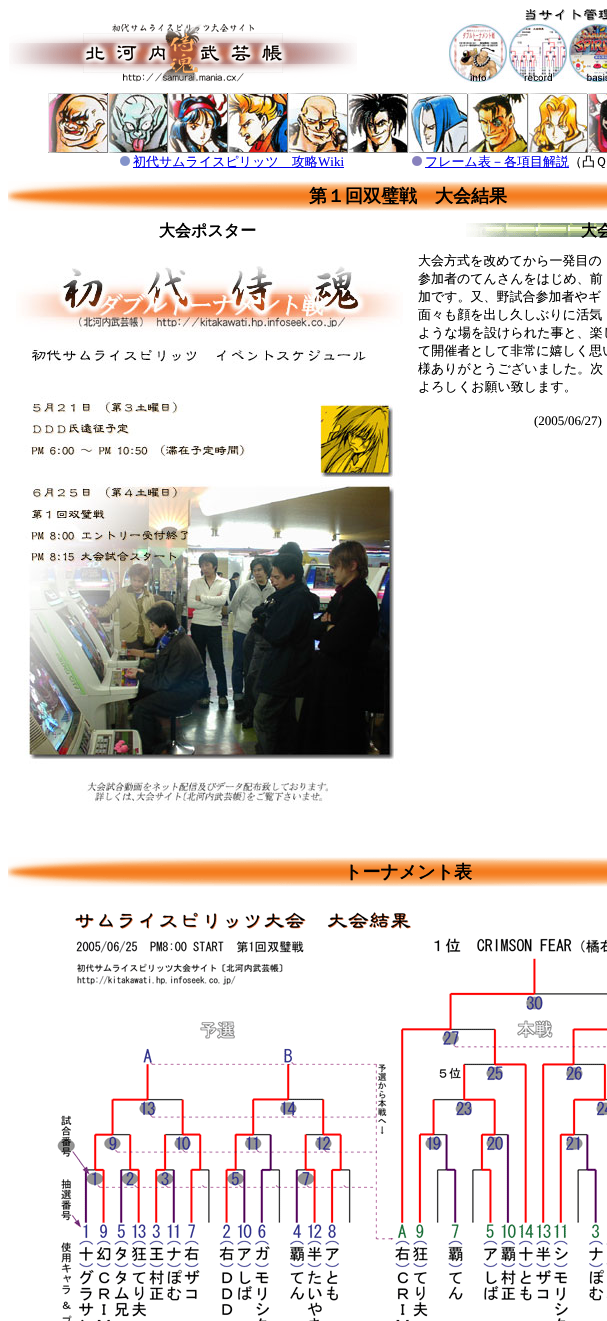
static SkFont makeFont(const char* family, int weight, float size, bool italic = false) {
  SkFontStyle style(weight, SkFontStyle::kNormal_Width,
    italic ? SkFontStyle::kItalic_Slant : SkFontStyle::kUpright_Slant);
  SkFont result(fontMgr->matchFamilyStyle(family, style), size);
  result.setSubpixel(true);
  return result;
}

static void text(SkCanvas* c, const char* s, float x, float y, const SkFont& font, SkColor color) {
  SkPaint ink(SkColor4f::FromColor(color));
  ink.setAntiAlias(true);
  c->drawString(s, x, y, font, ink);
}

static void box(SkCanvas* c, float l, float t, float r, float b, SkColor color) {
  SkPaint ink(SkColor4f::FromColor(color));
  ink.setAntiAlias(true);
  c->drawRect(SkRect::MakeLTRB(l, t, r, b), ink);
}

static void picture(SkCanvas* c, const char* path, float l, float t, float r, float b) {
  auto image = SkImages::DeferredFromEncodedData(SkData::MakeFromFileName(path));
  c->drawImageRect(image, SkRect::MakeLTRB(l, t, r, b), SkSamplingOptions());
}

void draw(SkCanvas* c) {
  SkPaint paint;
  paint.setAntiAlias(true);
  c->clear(0xffffffff);
  picture(c, "img_01.png", 525, 9, 607, 21);
  picture(c, "img_02.png", 9, 24, 357, 82);
  picture(c, "img_03.png", 83, 33, 283, 73);
  picture(c, "img_04.png", 448, 23, 508, 83);
  picture(c, "img_05.png", 508, 23, 568, 83);
  picture(c, "img_06.png", 568, 23, 607, 83);
  picture(c, "img_07.png", 48, 93, 108, 153);
  picture(c, "img_08.png", 108, 93, 168, 153);
  picture(c, "img_09.png", 168, 93, 228, 153);
  picture(c, "img_10.png", 228, 93, 288, 153);
  picture(c, "img_11.png", 288, 93, 348, 153);
  picture(c, "img_12.png", 348, 93, 408, 153);
  picture(c, "img_13.png", 408, 93, 468, 153);
  picture(c, "img_14.png", 468, 93, 528, 153);
  picture(c, "img_15.png", 528, 93, 588, 153);
  picture(c, "img_16.png", 588, 93, 607, 153);
  picture(c, "img_17.png", 120, 156, 130, 166);
  box(c, 133, 167, 344, 168, 0xff0000ee);
  SkFont face1 = makeFont("WenQuanYi Zen Hei", 500, 13);
  text(c, "初代サムライスピリッツ　攻略", 133, 166, face1, 0xff0000ee);
  SkFont face2 = makeFont("Liberation Serif", 400, 13);
  text(c, "Wiki", 318, 166, face2, 0xff0000ee);
  picture(c, "img_18.png", 412, 156, 422, 166);
  box(c, 425, 167, 569, 168, 0xff0000ee);
  text(c, "フレーム表－各項目解説", 425, 166, face1, 0xff0000ee);
  text(c, "（凸Ｑ", 569, 166, face1, 0xff000000);
  picture(c, "img_19.png", 8, 181, 607, 211);
  SkFont face3 = makeFont("WenQuanYi Zen Hei", 700, 18);
  text(c, "第１回双璧戦　大会結果", 309, 202, face3, 0xff000000);
  SkFont face4 = makeFont("WenQuanYi Zen Hei", 700, 16);
  text(c, "大会ポスター", 159, 236, face4, 0xff000000);
  picture(c, "img_20.png", 466, 223, 607, 237);
  text(c, "大会", 581, 236, face4, 0xff000000);
  picture(c, "img_21.png", 16, 266, 403, 804);
  text(c, "大会方式を改めてから一発目の", 418, 265, face1, 0xff000000);
  text(c, "参加者のてんさんをはじめ、前", 418, 283, face1, 0xff000000);
  text(c, "加です。又、野試合参加者やギ", 418, 301, face1, 0xff000000);
  text(c, "面々も顔を出し久しぶりに活気", 418, 319, face1, 0xff000000);
  text(c, "ような場を設けられた事と、楽し", 418, 337, face1, 0xff000000);
  text(c, "て開催者として非常に嬉しく思い", 418, 355, face1, 0xff000000);
  text(c, "様ありがとうございました。次", 418, 373, face1, 0xff000000);
  text(c, "よろしくお願い致します。", 418, 391, face1, 0xff000000);
  text(c, "(2005/06/27)", 534, 425, face2, 0xff000000);
  picture(c, "img_19.png", 8, 857, 607, 887);
  text(c, "トーナメント表", 344, 878, face3, 0xff000000);
  picture(c, "img_22.png", 57, 912, 607, 1321);
}
